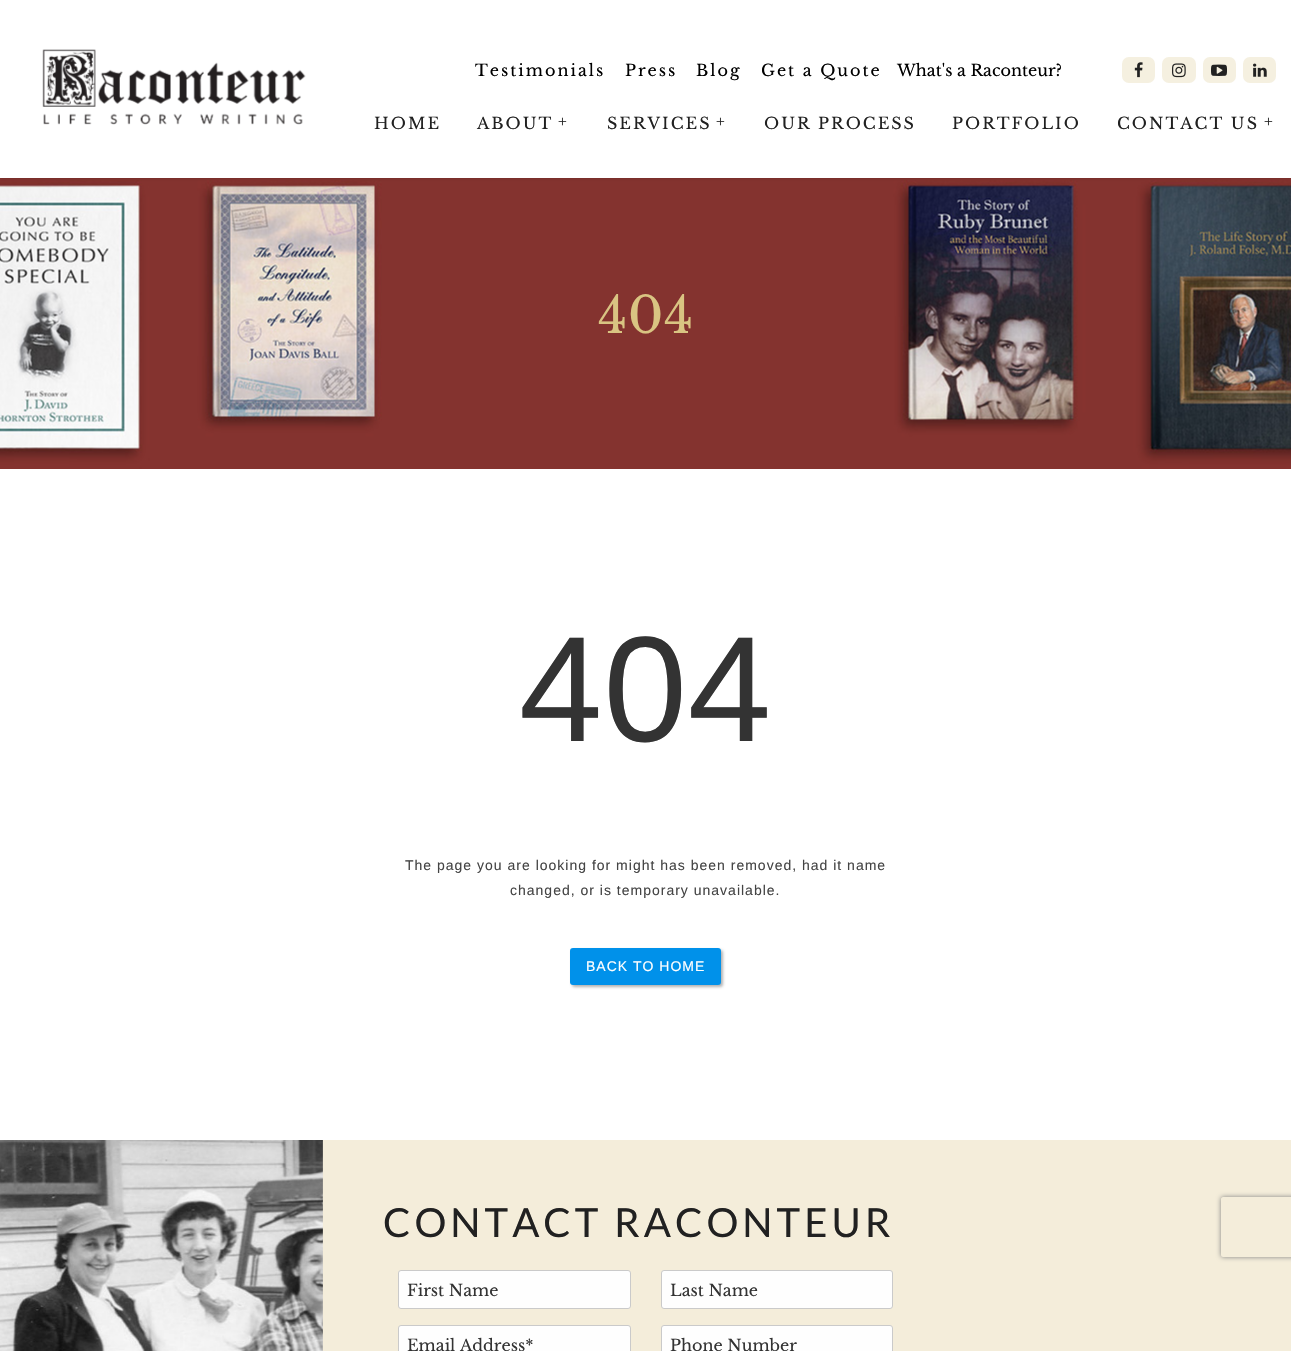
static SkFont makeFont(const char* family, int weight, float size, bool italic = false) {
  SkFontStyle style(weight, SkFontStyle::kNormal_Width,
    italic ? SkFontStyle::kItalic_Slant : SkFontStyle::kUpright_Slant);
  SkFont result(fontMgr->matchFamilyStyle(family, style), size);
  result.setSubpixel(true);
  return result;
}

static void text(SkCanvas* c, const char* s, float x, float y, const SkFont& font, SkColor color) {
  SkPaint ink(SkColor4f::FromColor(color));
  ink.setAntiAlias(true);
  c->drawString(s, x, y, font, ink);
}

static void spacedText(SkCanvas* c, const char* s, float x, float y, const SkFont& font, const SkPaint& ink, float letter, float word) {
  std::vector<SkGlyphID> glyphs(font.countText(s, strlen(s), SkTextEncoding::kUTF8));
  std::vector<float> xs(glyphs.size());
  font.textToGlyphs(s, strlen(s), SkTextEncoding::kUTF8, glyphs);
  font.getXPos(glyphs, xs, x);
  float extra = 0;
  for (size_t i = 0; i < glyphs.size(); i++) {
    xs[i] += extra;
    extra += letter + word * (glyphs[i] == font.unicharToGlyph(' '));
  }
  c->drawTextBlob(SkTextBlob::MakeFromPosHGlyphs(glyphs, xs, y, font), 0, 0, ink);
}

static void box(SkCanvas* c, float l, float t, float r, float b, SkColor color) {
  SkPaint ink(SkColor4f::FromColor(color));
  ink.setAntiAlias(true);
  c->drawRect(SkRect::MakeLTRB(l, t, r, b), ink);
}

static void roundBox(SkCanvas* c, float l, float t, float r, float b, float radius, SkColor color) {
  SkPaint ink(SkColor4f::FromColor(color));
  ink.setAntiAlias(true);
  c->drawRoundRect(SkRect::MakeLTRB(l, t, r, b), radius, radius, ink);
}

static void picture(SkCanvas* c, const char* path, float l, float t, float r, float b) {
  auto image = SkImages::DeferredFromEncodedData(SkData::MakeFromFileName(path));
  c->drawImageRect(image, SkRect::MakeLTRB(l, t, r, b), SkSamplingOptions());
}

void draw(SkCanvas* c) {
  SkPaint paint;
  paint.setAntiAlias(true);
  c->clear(0xffffffff);
  picture(c, "img_06.png", 0, 178, 1291, 469);
  paint.setColor(0x33000000);
  paint.setMaskFilter(SkMaskFilter::MakeBlur(kNormal_SkBlurStyle, 1.5f));
  c->drawRect(SkRect::MakeLTRB(0, 0, 1291, 178), paint);
  paint.setMaskFilter(nullptr);
  box(c, 0, 0, 1291, 178, 0xffffffff);
  picture(c, "img_01.png", 42, 49, 306, 125);
  SkFont face1 = makeFont("Libre Baskerville", 400, 16);
  paint.setColor(0xff000000);
  spacedText(c, "Testimonials", 475, 76, face1, paint, 2, 0);
  spacedText(c, "Press", 625, 76, face1, paint, 2, 0);
  spacedText(c, "Blog", 696, 76, face1, paint, 2, 0);
  spacedText(c, "Get a Quote", 761, 76, face1, paint, 2, 0);
  text(c, "What's a Raconteur?", 897, 76, face1, 0xff000000);
  roundBox(c, 1122, 57, 1155, 83, 7, 0xfff5f0e0);
  picture(c, "img_02.png", 1134, 62, 1143, 78);
  roundBox(c, 1162, 57, 1196, 83, 7, 0xfff5f0e0);
  picture(c, "img_03.png", 1172, 63, 1186, 78);
  roundBox(c, 1203, 57, 1236, 83, 7, 0xfff5f0e0);
  picture(c, "img_04.png", 1211, 64, 1227, 76);
  roundBox(c, 1243, 57, 1276, 83, 7, 0xfff5f0e0);
  picture(c, "img_05.png", 1253, 63, 1267, 77);
  paint.setColor(0xff212121);
  spacedText(c, "HOME", 374, 129, face1, paint, 2, 0);
  spacedText(c, "ABOUT", 477, 129, face1, paint, 2, 0);
  spacedText(c, "+", 558, 127, face1, paint, 2, 0);
  spacedText(c, "SERVICES", 607, 129, face1, paint, 2, 0);
  spacedText(c, "+", 716, 127, face1, paint, 2, 0);
  spacedText(c, "OUR PROCESS", 764, 129, face1, paint, 2, 0);
  spacedText(c, "PORTFOLIO", 952, 129, face1, paint, 2, 0);
  spacedText(c, "CONTACT US", 1117, 129, face1, paint, 2, 0);
  spacedText(c, "+", 1264, 127, face1, paint, 2, 0);
  SkFont face2 = makeFont("Libre Baskerville", 400, 50);
  paint.setColor(0xffd9c482);
  spacedText(c, "404", 598, 333, face2, paint, 0.5f, 0);
  SkFont face3 = makeFont("Liberation Sans", 400, 150);
  paint.setColor(0xff333333);
  spacedText(c, "404", 519, 741, face3, paint, 1, 0);
  SkFont face4 = makeFont("Liberation Sans", 400, 14);
  paint.setColor(0xff444444);
  spacedText(c, "The page you are looking for might has been removed, had it name", 405, 870, face4, paint, 1, 0);
  spacedText(c, "changed, or is temporary unavailable.", 510, 895, face4, paint, 1, 0);
  paint.setColor(0x4d000000);
  paint.setMaskFilter(SkMaskFilter::MakeBlur(kNormal_SkBlurStyle, 1.5f));
  c->drawRoundRect(SkRect::MakeLTRB(572, 950, 723, 987), 3, 3, paint);
  paint.setMaskFilter(nullptr);
  roundBox(c, 570, 948, 721, 985, 3, 0xff0091ea);
  paint.setColor(0xffffffff);
  spacedText(c, "BACK TO HOME", 586, 971, face4, paint, 1, 0);
  box(c, 322, 1140, 1291, 1351, 0xfff4edda);
  picture(c, "img_07.png", 0, 1140, 323, 1351);
  SkFont face5 = makeFont("Lato", 400, 40);
  paint.setColor(0xff212121);
  spacedText(c, "CONTACT RACONTEUR", 383, 1237, face5, paint, 4, 0);
  paint.setColor(0xfffefefe);
  c->drawRoundRect(SkRect::MakeLTRB(398.5f, 1270.5f, 630.5f, 1308.5f), 2.5f, 2.5f, paint);
  paint.setStyle(SkPaint::kStroke_Style);
  paint.setStrokeWidth(1);
  paint.setColor(0xffcacaca);
  c->drawRoundRect(SkRect::MakeLTRB(398.5f, 1270.5f, 630.5f, 1308.5f), 2.5f, 2.5f, paint);
  text(c, "First Name", 407, 1296, face1, 0xff333333);
  paint.setStyle(SkPaint::kFill_Style);
  paint.setColor(0xfffefefe);
  c->drawRoundRect(SkRect::MakeLTRB(661.5f, 1270.5f, 892.5f, 1308.5f), 2.5f, 2.5f, paint);
  paint.setStyle(SkPaint::kStroke_Style);
  paint.setColor(0xffcacaca);
  c->drawRoundRect(SkRect::MakeLTRB(661.5f, 1270.5f, 892.5f, 1308.5f), 2.5f, 2.5f, paint);
  text(c, "Last Name", 670, 1296, face1, 0xff333333);
  paint.setStyle(SkPaint::kFill_Style);
  paint.setColor(0xfffefefe);
  c->drawRoundRect(SkRect::MakeLTRB(398.5f, 1325.5f, 630.5f, 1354.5f), 2.5f, 2.5f, paint);
  paint.setStyle(SkPaint::kStroke_Style);
  paint.setColor(0xffcacaca);
  c->drawRoundRect(SkRect::MakeLTRB(398.5f, 1325.5f, 630.5f, 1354.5f), 2.5f, 2.5f, paint);
  text(c, "Email Address*", 407, 1351, face1, 0xff333333);
  paint.setStyle(SkPaint::kFill_Style);
  paint.setColor(0xfffefefe);
  c->drawRoundRect(SkRect::MakeLTRB(661.5f, 1325.5f, 892.5f, 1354.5f), 2.5f, 2.5f, paint);
  paint.setStyle(SkPaint::kStroke_Style);
  paint.setColor(0xffcacaca);
  c->drawRoundRect(SkRect::MakeLTRB(661.5f, 1325.5f, 892.5f, 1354.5f), 2.5f, 2.5f, paint);
  text(c, "Phone Number", 670, 1351, face1, 0xff333333);
  c->save();
  c->clipPath(SkPathBuilder(SkPathFillType::kEvenOdd).moveTo(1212, 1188).lineTo(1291, 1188).lineTo(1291, 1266).lineTo(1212, 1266).close().moveTo(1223, 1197).lineTo(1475, 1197).cubicTo(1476, 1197, 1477, 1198, 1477, 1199).lineTo(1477, 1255).cubicTo(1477, 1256, 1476, 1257, 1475, 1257).lineTo(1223, 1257).cubicTo(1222, 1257, 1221, 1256, 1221, 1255).lineTo(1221, 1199).cubicTo(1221, 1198, 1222, 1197, 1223, 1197).close().detach(), true);
  paint.setStyle(SkPaint::kFill_Style);
  paint.setColor(0xff808080);
  paint.setMaskFilter(SkMaskFilter::MakeBlur(kNormal_SkBlurStyle, 2.5f));
  c->drawRoundRect(SkRect::MakeLTRB(1221, 1197, 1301, 1257), 2, 2, paint);
  paint.setMaskFilter(nullptr);
  c->restore();
}
